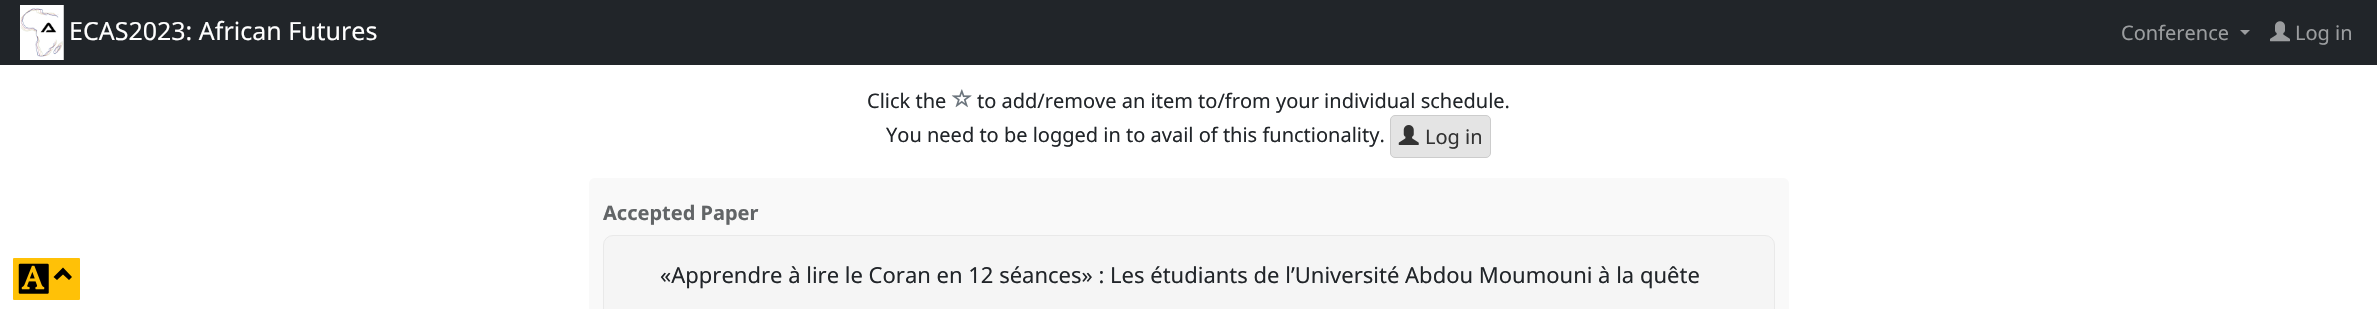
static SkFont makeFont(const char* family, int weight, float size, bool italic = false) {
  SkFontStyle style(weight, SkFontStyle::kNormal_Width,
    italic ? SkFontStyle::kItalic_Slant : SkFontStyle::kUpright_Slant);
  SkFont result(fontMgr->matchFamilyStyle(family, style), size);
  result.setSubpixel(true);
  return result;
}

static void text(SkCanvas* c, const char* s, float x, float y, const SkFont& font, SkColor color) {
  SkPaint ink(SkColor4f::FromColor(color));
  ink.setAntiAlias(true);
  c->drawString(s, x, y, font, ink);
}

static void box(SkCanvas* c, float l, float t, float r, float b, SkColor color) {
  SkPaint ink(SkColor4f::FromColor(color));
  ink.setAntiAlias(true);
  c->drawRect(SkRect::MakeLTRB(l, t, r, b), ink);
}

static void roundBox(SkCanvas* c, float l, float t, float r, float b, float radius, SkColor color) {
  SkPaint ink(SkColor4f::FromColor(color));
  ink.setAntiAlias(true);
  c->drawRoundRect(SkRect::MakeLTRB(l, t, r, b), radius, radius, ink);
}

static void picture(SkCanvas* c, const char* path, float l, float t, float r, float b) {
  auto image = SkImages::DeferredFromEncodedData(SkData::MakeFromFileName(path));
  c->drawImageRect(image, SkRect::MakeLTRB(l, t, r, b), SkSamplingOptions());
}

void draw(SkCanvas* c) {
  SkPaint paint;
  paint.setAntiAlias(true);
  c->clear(0xffffffff);
  box(c, 0, 0, 2377, 65, 0xff212529);
  picture(c, "img_01.png", 20, 5, 64, 60);
  SkFont face1 = makeFont("Noto Sans", 400, 25);
  text(c, "ECAS2023: African Futures", 69, 40, face1, 0xffffffff);
  SkFont face2 = makeFont("Noto Sans", 400, 20);
  text(c, "Conference", 2121, 40, face2, 0xff9b9d9f);
  paint.setColor(0xff9b9d9f);
  c->drawPath(SkPathBuilder().moveTo(2240, 30).lineTo(2250, 30).lineTo(2245, 35).close().detach(), paint);
  picture(c, "img_02.png", 2270, 21, 2290, 42);
  text(c, "Log in", 2295, 40, face2, 0xff9b9d9f);
  paint.setColor(0xffffc107);
  c->drawRoundRect(SkRect::MakeLTRB(11.5f, 256.5f, 81.5f, 301.5f), 2.5f, 2.5f, paint);
  paint.setStyle(SkPaint::kStroke_Style);
  paint.setStrokeWidth(3);
  paint.setColor(0xffffffff);
  c->drawRoundRect(SkRect::MakeLTRB(11.5f, 256.5f, 81.5f, 301.5f), 2.5f, 2.5f, paint);
  picture(c, "img_03.png", 18, 263, 49, 294);
  paint.setStyle(SkPaint::kFill_Style);
  paint.setColor(0xff000000);
  c->drawPath(SkPathBuilder().moveTo(72, 277).lineTo(69, 280).lineTo(63, 274.5f).lineTo(57, 280).lineTo(53.5f, 277).lineTo(63, 267.5f).close().detach(), paint);
  text(c, "Click the", 867, 108, face2, 0xff212529);
  picture(c, "img_04.png", 951, 89, 972, 108);
  text(c, "to add/remove an item to/from your individual schedule.", 977, 108, face2, 0xff212529);
  text(c, "You need to be logged in to avail of this functionality.", 886, 142, face2, 0xff212529);
  paint.setColor(0xffe4e4e4);
  c->drawRoundRect(SkRect::MakeLTRB(1390.5f, 115.5f, 1490.5f, 157.5f), 4.5f, 4.5f, paint);
  paint.setStyle(SkPaint::kStroke_Style);
  paint.setStrokeWidth(1);
  paint.setColor(0xffcccccc);
  c->drawRoundRect(SkRect::MakeLTRB(1390.5f, 115.5f, 1490.5f, 157.5f), 4.5f, 4.5f, paint);
  picture(c, "img_05.png", 1398, 125, 1419, 145);
  text(c, "Log in", 1425, 144, face2, 0xff333333);
  roundBox(c, 589, 178, 1789, 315, 6, 0xfff9f9f9);
  SkFont face3 = makeFont("Noto Sans", 700, 20);
  text(c, "Accepted Paper", 603, 220, face3, 0xff626567);
  paint.setStyle(SkPaint::kFill_Style);
  paint.setColor(0xfff5f5f5);
  c->drawRoundRect(SkRect::MakeLTRB(603.5f, 235.5f, 1774.5f, 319.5f), 9.5f, 9.5f, paint);
  paint.setStyle(SkPaint::kStroke_Style);
  paint.setColor(0xffe9e9e9);
  c->drawRoundRect(SkRect::MakeLTRB(603.5f, 235.5f, 1774.5f, 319.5f), 9.5f, 9.5f, paint);
  SkFont face4 = makeFont("Noto Sans", 400, 22);
  text(c, "«Apprendre à lire le Coran en 12 séances» : Les étudiants de l’Université Abdou Moumouni à la quête", 660, 283, face4, 0xff212529);
}
